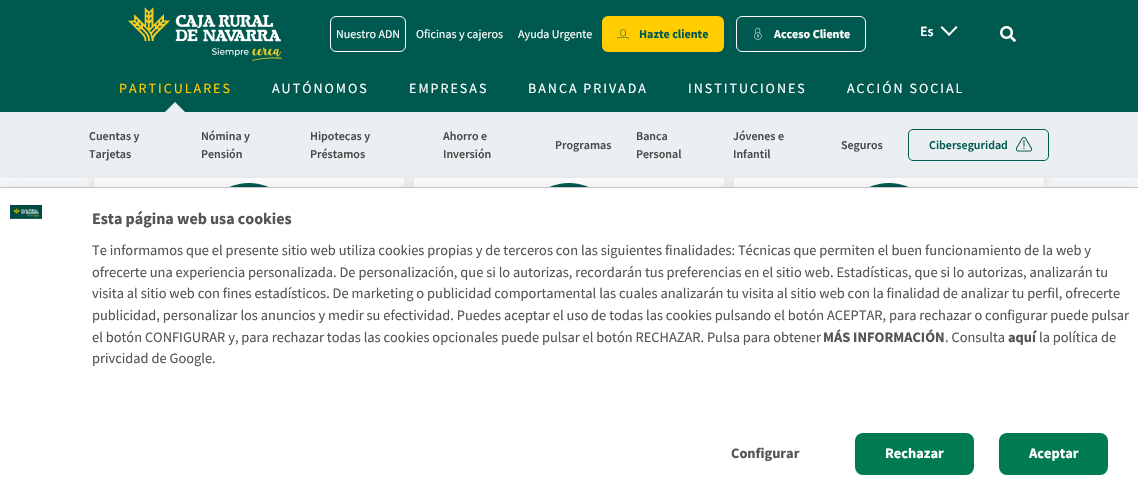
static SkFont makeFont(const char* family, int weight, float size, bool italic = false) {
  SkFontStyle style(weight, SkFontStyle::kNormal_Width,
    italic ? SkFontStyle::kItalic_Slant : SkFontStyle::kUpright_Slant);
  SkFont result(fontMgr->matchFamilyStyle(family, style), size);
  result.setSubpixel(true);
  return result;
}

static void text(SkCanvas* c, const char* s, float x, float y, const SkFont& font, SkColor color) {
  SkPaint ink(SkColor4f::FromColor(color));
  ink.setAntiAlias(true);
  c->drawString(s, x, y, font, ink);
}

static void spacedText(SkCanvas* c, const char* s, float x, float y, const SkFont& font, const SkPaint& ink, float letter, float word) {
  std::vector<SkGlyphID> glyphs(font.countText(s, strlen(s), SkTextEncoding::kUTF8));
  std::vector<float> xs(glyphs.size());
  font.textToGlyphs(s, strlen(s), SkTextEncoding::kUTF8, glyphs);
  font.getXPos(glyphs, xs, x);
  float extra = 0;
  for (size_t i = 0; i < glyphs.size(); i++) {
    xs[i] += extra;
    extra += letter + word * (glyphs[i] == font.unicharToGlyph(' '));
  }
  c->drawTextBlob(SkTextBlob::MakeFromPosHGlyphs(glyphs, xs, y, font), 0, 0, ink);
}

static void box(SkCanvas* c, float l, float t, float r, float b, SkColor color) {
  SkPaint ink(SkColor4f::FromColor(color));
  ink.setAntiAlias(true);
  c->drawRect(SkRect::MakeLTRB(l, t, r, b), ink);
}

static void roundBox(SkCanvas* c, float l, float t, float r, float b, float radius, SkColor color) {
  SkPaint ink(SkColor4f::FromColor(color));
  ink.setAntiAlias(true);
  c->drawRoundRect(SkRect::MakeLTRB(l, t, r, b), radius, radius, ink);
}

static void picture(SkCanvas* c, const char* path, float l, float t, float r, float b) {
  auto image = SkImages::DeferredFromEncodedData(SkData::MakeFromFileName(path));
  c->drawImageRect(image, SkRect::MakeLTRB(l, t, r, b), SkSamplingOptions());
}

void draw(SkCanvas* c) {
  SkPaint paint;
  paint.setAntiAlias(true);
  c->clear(0xfff9fafb);
  box(c, 0, 0, 1138, 112, 0xff00594f);
  picture(c, "img_01.png", 128, 7, 283, 61);
  paint.setStyle(SkPaint::kStroke_Style);
  paint.setStrokeWidth(1);
  paint.setColor(0xffffffff);
  c->drawRoundRect(SkRect::MakeLTRB(330.5f, 16.5f, 405.5f, 51.5f), 5.5f, 5.5f, paint);
  SkFont face1 = makeFont("Source Sans Pro", 400, 12);
  text(c, "Nuestro ADN", 336, 38, face1, 0xffffffff);
  text(c, "Oficinas y cajeros", 416, 38, face1, 0xffffffff);
  text(c, "Ayuda Urgente", 518, 38, face1, 0xffffffff);
  roundBox(c, 602, 16, 724, 52, 6, 0xffffcd00);
  picture(c, "img_02.png", 617, 29, 629, 39);
  SkFont face2 = makeFont("Source Sans Pro", 700, 12);
  text(c, "Hazte cliente", 639, 38, face2, 0xff00594f);
  c->drawRoundRect(SkRect::MakeLTRB(736.5f, 16.5f, 865.5f, 51.5f), 5.5f, 5.5f, paint);
  picture(c, "img_03.png", 754, 27, 762, 40);
  text(c, "Acceso Cliente", 774, 38, face2, 0xffffffff);
  SkFont face3 = makeFont("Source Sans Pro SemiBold", 600, 14);
  text(c, "Es", 920, 36, face3, 0xffffffff);
  paint.setStyle(SkPaint::kFill_Style);
  c->drawPath(SkPathBuilder().moveTo(957.5f, 27.5f).lineTo(949, 36).lineTo(948, 34.5f).lineTo(956, 26).close().detach(), paint);
  c->drawPath(SkPathBuilder().moveTo(950.5f, 34.5f).lineTo(949, 36).lineTo(940.5f, 27.5f).lineTo(942, 26).close().detach(), paint);
  picture(c, "img_04.png", 1000, 26, 1016, 42);
  SkFont face4 = makeFont("Source Sans Pro", 400, 14);
  spacedText(c, "AUTÓNOMOS", 272, 93, face4, paint, 2, 0);
  spacedText(c, "ACCIÓN SOCIAL", 847, 93, face4, paint, 2, 0);
  paint.setColor(0xffffcd00);
  spacedText(c, "PARTICULARES", 119, 93, face4, paint, 2, 0);
  paint.setColor(0xffebeff2);
  c->drawPath(SkPathBuilder().moveTo(185, 112).lineTo(165, 112).lineTo(175, 102).close().detach(), paint);
  paint.setColor(0x1a000000);
  paint.setMaskFilter(SkMaskFilter::MakeBlur(kNormal_SkBlurStyle, 4));
  c->drawRoundRect(SkRect::MakeLTRB(94, 159, 404, 389), 5, 5, paint);
  paint.setMaskFilter(nullptr);
  box(c, 94, 178, 404, 187, 0xffffffff);
  paint.setMaskFilter(SkMaskFilter::MakeBlur(kNormal_SkBlurStyle, 4));
  c->drawRoundRect(SkRect::MakeLTRB(414, 159, 724, 389), 5, 5, paint);
  paint.setMaskFilter(nullptr);
  box(c, 414, 178, 724, 187, 0xffffffff);
  paint.setMaskFilter(SkMaskFilter::MakeBlur(kNormal_SkBlurStyle, 4));
  c->drawRoundRect(SkRect::MakeLTRB(734, 159, 1044, 389), 5, 5, paint);
  paint.setMaskFilter(nullptr);
  box(c, 0, 112, 1138, 178, 0xffebeff2);
  SkFont face5 = makeFont("Source Sans Pro SemiBold", 600, 12);
  text(c, "Cuentas y", 89, 140, face5, 0xff4a4a4a);
  text(c, "Tarjetas", 89, 158, face5, 0xff4a4a4a);
  text(c, "Nómina y", 201, 140, face5, 0xff4a4a4a);
  text(c, "Pensión", 201, 158, face5, 0xff4a4a4a);
  text(c, "Hipotecas y", 310, 140, face5, 0xff4a4a4a);
  text(c, "Préstamos", 310, 158, face5, 0xff4a4a4a);
  text(c, "Ahorro e", 443, 140, face5, 0xff4a4a4a);
  text(c, "Inversión", 443, 158, face5, 0xff4a4a4a);
  text(c, "Programas", 555, 149, face5, 0xff4a4a4a);
  text(c, "Banca", 636, 140, face5, 0xff4a4a4a);
  text(c, "Personal", 636, 158, face5, 0xff4a4a4a);
  text(c, "Jóvenes e", 733, 140, face5, 0xff4a4a4a);
  text(c, "Infantil", 733, 158, face5, 0xff4a4a4a);
  text(c, "Seguros", 841, 149, face5, 0xff4a4a4a);
  picture(c, "img_05.png", 1016, 137, 1032, 152);
  paint.setStyle(SkPaint::kStroke_Style);
  paint.setColor(0xff00594f);
  c->drawRoundRect(SkRect::MakeLTRB(908.5f, 129.5f, 1048.5f, 160.5f), 4.5f, 4.5f, paint);
  text(c, "Ciberseguridad", 929, 149, face5, 0xff00594f);
  paint.setStyle(SkPaint::kFill_Style);
  paint.setColor(0xffffffff);
  spacedText(c, "EMPRESAS", 409, 93, face4, paint, 2, 0);
  spacedText(c, "BANCA PRIVADA", 528, 93, face4, paint, 2, 0);
  spacedText(c, "INSTITUCIONES", 688, 93, face4, paint, 2, 0);
  paint.setColor(0xff00594f);
  c->drawCircle(249, 233, 50, paint);
  c->drawCircle(569, 233, 50, paint);
  box(c, 734, 178, 1044, 187, 0xffffffff);
  c->drawCircle(889, 233, 50, paint);
  paint.setColor(0x30000000);
  paint.setMaskFilter(SkMaskFilter::MakeBlur(kNormal_SkBlurStyle, 10));
  c->drawRect(SkRect::MakeLTRB(0, 193, 1138, 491), paint);
  paint.setMaskFilter(nullptr);
  box(c, 0, 188, 1138, 485, 0xffffffff);
  box(c, 0, 187, 1138, 188, 0xffc4c4c4);
  picture(c, "img_06.png", 10, 205, 42, 219);
  SkFont face6 = makeFont("Source Sans Pro", 700, 16);
  text(c, "Esta página web usa cookies", 92, 224, face6, 0xff555555);
  SkFont face7 = makeFont("Source Sans Pro", 400, 14.4f);
  text(c, "Te informamos que el presente sitio web utiliza cookies propias y de terceros con las siguientes finalidades: Técnicas que permiten el buen funcionamiento de la web y", 92, 255, face7, 0xff555555);
  text(c, "ofrecerte una experiencia personalizada. De personalización, que si lo autorizas, recordarán tus preferencias en el sitio web. Estadísticas, que si lo autorizas, analizarán tu", 92, 277, face7, 0xff555555);
  text(c, "visita al sitio web con fines estadísticos. De marketing o publicidad comportamental las cuales analizarán tu visita al sitio web con la finalidad de analizar tu perfil, ofrecerte", 92, 298, face7, 0xff555555);
  text(c, "publicidad, personalizar los anuncios y medir su efectividad. Puedes aceptar el uso de todas las cookies pulsando el botón ACEPTAR, para rechazar o configurar puede pulsar", 92, 320, face7, 0xff555555);
  text(c, "el botón CONFIGURAR y, para rechazar todas las cookies opcionales puede pulsar el botón RECHAZAR. Pulsa para obtener", 92, 342, face7, 0xff555555);
  SkFont face8 = makeFont("Source Sans Pro", 700, 14.4f);
  text(c, "MÁS INFORMACIÓN", 823, 342, face8, 0xff555555);
  text(c, ". Consulta", 945, 342, face7, 0xff555555);
  text(c, "aquí", 1008, 342, face8, 0xff555555);
  text(c, "la política de", 1039, 342, face7, 0xff555555);
  text(c, "privcidad de Google.", 92, 363, face7, 0xff555555);
  text(c, "Configurar", 731, 458, face8, 0xff555555);
  roundBox(c, 855, 433, 974, 475, 8, 0xff007a53);
  text(c, "Rechazar", 885, 458, face8, 0xffffffff);
  roundBox(c, 999, 433, 1108, 475, 8, 0xff007a53);
  text(c, "Aceptar", 1029, 458, face8, 0xffffffff);
}
